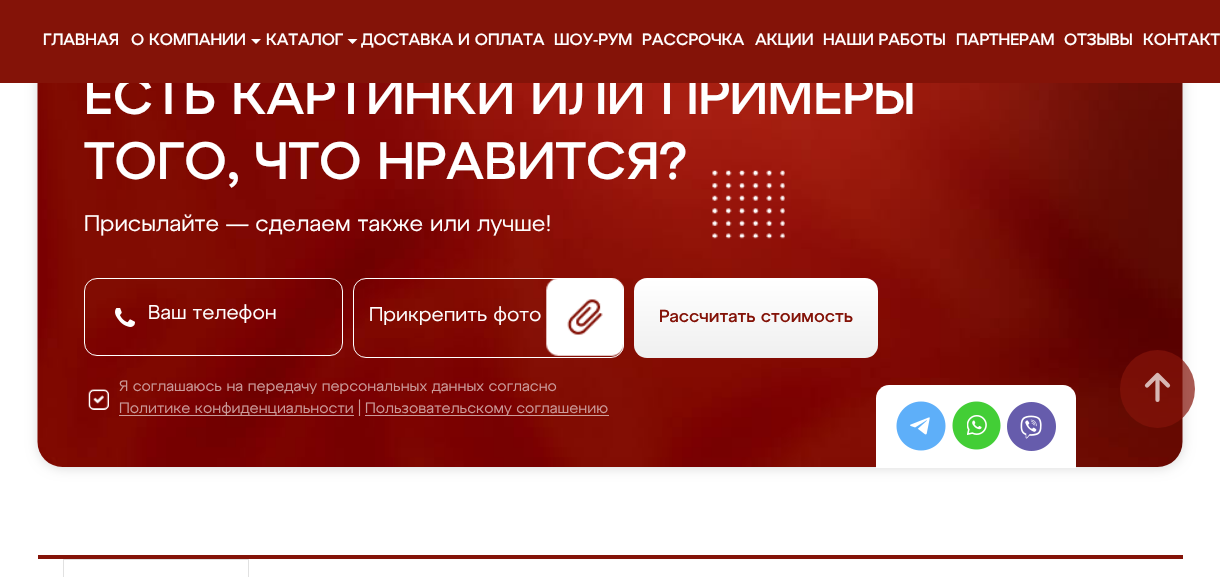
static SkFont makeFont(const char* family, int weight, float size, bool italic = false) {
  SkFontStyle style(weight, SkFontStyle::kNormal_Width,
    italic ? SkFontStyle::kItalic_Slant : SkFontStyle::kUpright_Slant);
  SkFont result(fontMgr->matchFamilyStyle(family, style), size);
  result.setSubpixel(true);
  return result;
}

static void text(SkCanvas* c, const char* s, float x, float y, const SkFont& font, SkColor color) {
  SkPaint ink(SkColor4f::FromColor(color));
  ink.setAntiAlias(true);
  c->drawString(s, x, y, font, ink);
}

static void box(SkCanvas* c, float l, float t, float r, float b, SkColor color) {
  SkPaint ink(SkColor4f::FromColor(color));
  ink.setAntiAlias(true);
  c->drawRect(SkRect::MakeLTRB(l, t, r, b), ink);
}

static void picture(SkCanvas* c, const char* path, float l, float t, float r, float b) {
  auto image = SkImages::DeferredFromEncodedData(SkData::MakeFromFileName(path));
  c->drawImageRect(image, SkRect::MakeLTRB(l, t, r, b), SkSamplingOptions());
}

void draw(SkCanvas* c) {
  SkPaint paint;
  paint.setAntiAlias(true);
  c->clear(0xffffffff);
  paint.setColor(0xffd9d9d9);
  paint.setMaskFilter(SkMaskFilter::MakeBlur(kNormal_SkBlurStyle, 6));
  c->drawRoundRect(SkRect::MakeLTRB(38, 21, 1183, 468), 25, 25, paint);
  paint.setMaskFilter(nullptr);
  picture(c, "img_01.png", 37, 83, 1183, 467);
  SkFont face1 = makeFont("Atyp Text", 500, 52.5f);
  text(c, "ЕСТЬ КАРТИНКИ ИЛИ ПРИМЕРЫ", 84, 114, face1, 0xffffffff);
  box(c, 0, 0, 1220, 83, 0xff841308);
  SkFont face2 = makeFont("Atyp Text", 500, 16.25f);
  text(c, "ГЛАВНАЯ", 43, 45, face2, 0xffffffff);
  text(c, "О КОМПАНИИ", 131, 45, face2, 0xffffffff);
  paint.setColor(0xffffffff);
  c->drawPath(SkPathBuilder().moveTo(256, 44).lineTo(251, 39).lineTo(261, 39).close().detach(), paint);
  text(c, "КАТАЛОГ", 266, 45, face2, 0xffffffff);
  c->drawPath(SkPathBuilder().moveTo(352.5f, 44).lineTo(347.5f, 39).lineTo(357.5f, 39).close().detach(), paint);
  text(c, "ДОСТАВКА И ОПЛАТА", 361, 45, face2, 0xffffffff);
  text(c, "ШОУ-РУМ", 554, 45, face2, 0xffffffff);
  text(c, "РАССРОЧКА", 642, 45, face2, 0xffffffff);
  text(c, "АКЦИИ", 755, 45, face2, 0xffffffff);
  text(c, "НАШИ РАБОТЫ", 823, 45, face2, 0xffffffff);
  text(c, "ПАРТНЕРАМ", 956, 45, face2, 0xffffffff);
  text(c, "ОТЗЫВЫ", 1064, 45, face2, 0xffffffff);
  text(c, "КОНТАКТ", 1143, 45, face2, 0xffffffff);
  text(c, "ТОГО, ЧТО НРАВИТСЯ?", 84, 179, face1, 0xffffffff);
  SkFont face3 = makeFont("Atyp Text", 400, 22.5f);
  text(c, "Присылайте — сделаем также или лучше!", 84, 231, face3, 0xffffffff);
  picture(c, "img_02.png", 712, 170, 785, 239);
  paint.setStyle(SkPaint::kStroke_Style);
  paint.setStrokeWidth(1);
  c->drawRoundRect(SkRect::MakeLTRB(84.5f, 278.5f, 342.5f, 355.5f), 12.5f, 12.5f, paint);
  picture(c, "img_03.png", 115, 308, 135, 327);
  SkFont face4 = makeFont("Atyp Text", 400, 20);
  text(c, "Ваш телефон", 148, 319, face4, 0xffffffff);
  c->drawRoundRect(SkRect::MakeLTRB(353.5f, 278.5f, 623.5f, 357.5f), 12.5f, 12.5f, paint);
  text(c, "Прикрепить фото", 369, 321, face4, 0xffffffff);
  picture(c, "img_04.png", 546, 278, 624, 356);
  paint.setStyle(SkPaint::kFill_Style);
  {
    const SkColor colors[] = {0xffffffff, 0xffefefef};
    const float stops[] = {0, 1};
    const SkPoint ends[] = {{756, 278}, {756, 358}};
    paint.setShader(SkGradientShader::MakeLinear(ends, colors, stops, 2, SkTileMode::kClamp));
    paint.setAlpha(255);
  }
  c->drawRoundRect(SkRect::MakeLTRB(634, 278, 878, 358), 13, 13, paint);
  SkFont face5 = makeFont("Atyp Text", 500, 17.5f);
  text(c, "Рассчитать стоимость", 659, 322, face5, 0xff841308);
  SkFont face6 = makeFont("Atyp Text", 400, 15);
  text(c, "Я соглашаюсь на передачу персональных данных согласно", 119, 391, face6, 0xffca9a99);
  paint.setStyle(SkPaint::kStroke_Style);
  paint.setShader(nullptr);
  paint.setColor(0xffffffff);
  c->drawRoundRect(SkRect::MakeLTRB(89.5f, 390.5f, 108.5f, 409.5f), 4.5f, 4.5f, paint);
  picture(c, "img_05.png", 88, 389, 109, 410);
  box(c, 119, 415, 354, 416, 0x99ffffff);
  text(c, "Политике конфиденциальности", 119, 413, face6, 0xffca9a99);
  text(c, "|", 358, 413, face6, 0xffca9a99);
  box(c, 365, 415, 609, 416, 0x99ffffff);
  text(c, "Пользовательскому соглашению", 365, 413, face6, 0xffca9a99);
  paint.setStyle(SkPaint::kFill_Style);
  c->drawPath(SkPathBuilder().moveTo(889, 385).lineTo(1063, 385).cubicTo(1070, 385, 1076, 391, 1076, 398).lineTo(1076, 468).lineTo(876, 468).lineTo(876, 398).cubicTo(876, 391, 882, 385, 889, 385).close().detach(), paint);
  picture(c, "img_06.png", 896, 401, 946, 451);
  picture(c, "img_07.png", 952, 401, 1001, 450);
  picture(c, "img_08.png", 1007, 402, 1056, 451);
  paint.setColor(0xb3841308);
  c->drawOval(SkRect::MakeLTRB(1120, 350, 1195, 428), paint);
  paint.setStyle(SkPaint::kStroke_Style);
  paint.setStrokeWidth(4.2f);
  paint.setStrokeCap(SkPaint::kRound_Cap);
  paint.setStrokeJoin(SkPaint::kRound_Join);
  paint.setColor(0xffd7b7b4);
  c->drawPath(SkPathBuilder().moveTo(1157.5f, 375).lineTo(1157.5f, 400).moveTo(1157.5f, 375).lineTo(1147, 385.5f).moveTo(1157.5f, 375).lineTo(1168, 385.5f).detach(), paint);
  box(c, 38, 555, 1183, 559, 0xff841308);
  paint.setStrokeWidth(1);
  paint.setStrokeCap(SkPaint::kButt_Cap);
  paint.setStrokeJoin(SkPaint::kMiter_Join);
  paint.setColor(0xffe1e1e1);
  c->drawRect(SkRect::MakeLTRB(63.5f, 559.5f, 248.5f, 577.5f), paint);
}
